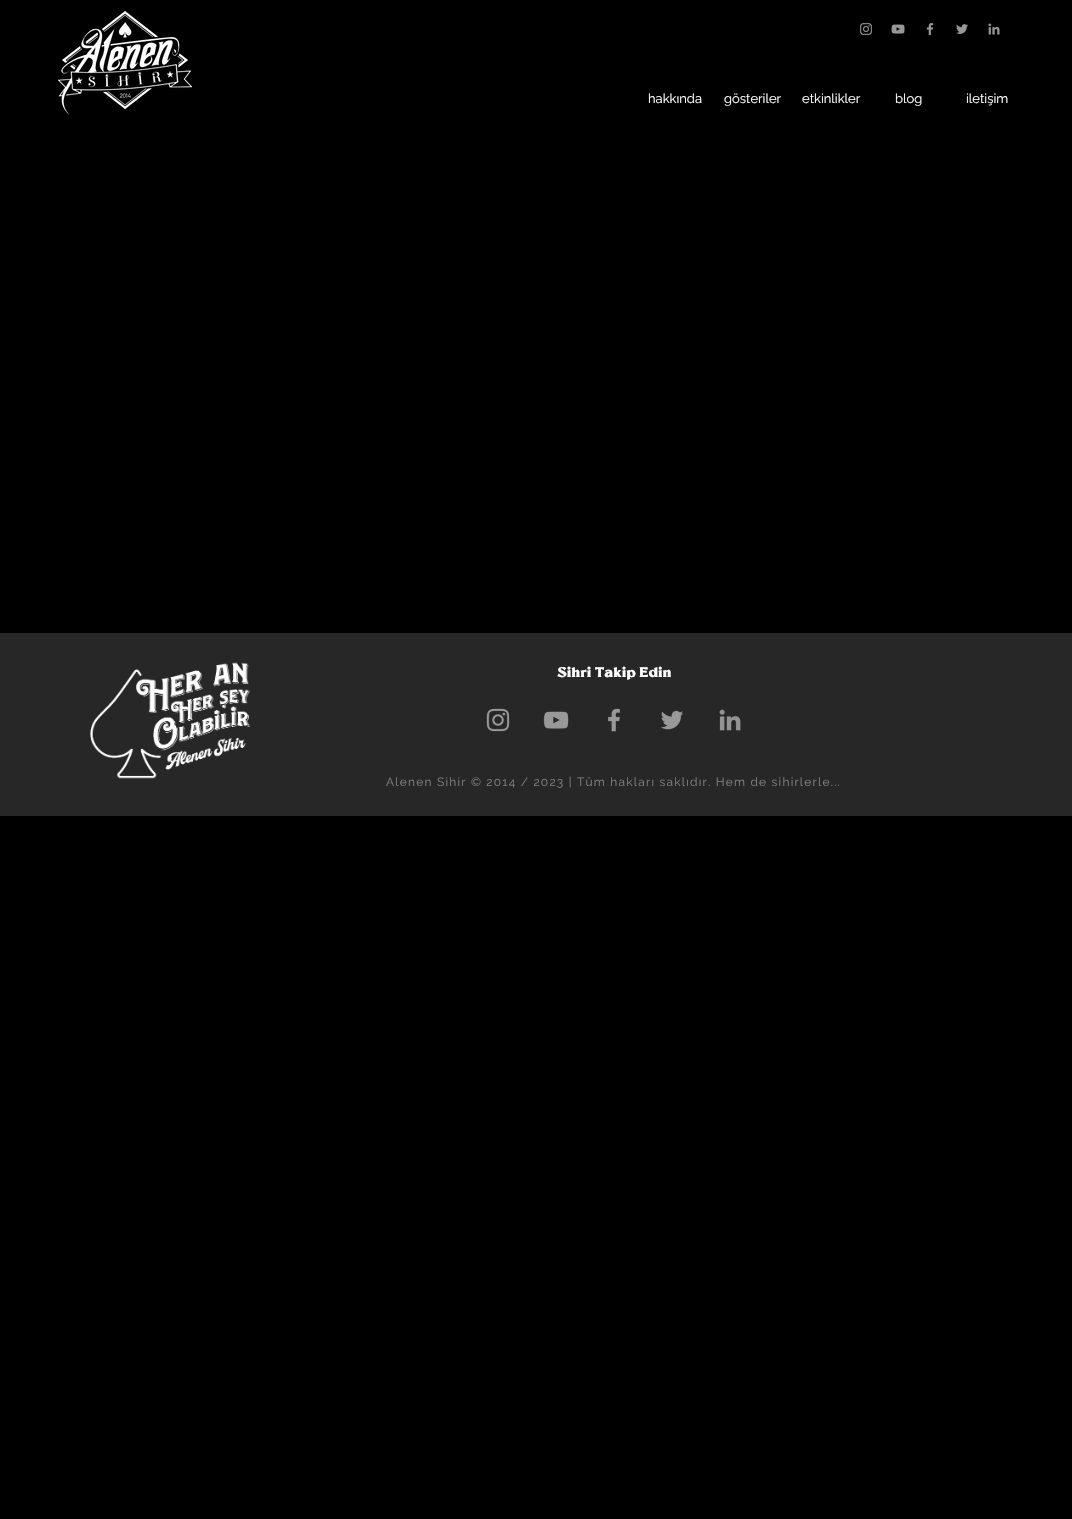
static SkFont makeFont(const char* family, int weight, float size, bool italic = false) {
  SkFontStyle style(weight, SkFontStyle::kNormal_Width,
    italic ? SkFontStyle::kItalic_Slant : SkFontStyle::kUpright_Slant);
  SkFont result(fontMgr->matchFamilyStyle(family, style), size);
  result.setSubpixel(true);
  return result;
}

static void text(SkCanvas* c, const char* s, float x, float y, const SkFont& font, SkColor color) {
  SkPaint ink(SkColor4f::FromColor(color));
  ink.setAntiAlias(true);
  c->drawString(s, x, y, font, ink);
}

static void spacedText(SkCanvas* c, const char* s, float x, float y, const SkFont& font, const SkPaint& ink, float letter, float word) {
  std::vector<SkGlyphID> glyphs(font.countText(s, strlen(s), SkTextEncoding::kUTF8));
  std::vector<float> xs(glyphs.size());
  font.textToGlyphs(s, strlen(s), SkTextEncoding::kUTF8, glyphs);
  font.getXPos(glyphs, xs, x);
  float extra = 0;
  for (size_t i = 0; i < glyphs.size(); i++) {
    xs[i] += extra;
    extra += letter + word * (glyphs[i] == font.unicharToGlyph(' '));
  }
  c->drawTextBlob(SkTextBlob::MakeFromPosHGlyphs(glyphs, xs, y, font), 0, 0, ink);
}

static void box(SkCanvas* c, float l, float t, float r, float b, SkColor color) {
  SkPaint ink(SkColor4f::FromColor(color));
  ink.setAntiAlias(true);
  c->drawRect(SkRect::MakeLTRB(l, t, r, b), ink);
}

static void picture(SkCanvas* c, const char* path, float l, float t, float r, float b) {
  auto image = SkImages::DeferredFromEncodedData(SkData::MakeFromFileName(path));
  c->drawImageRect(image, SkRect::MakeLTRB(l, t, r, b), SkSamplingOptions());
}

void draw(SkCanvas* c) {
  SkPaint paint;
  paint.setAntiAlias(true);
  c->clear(0xff000000);
  picture(c, "img_01.png", 58, 11, 192, 115);
  picture(c, "img_02.png", 859, 22, 872, 35);
  picture(c, "img_03.png", 891, 24, 905, 34);
  picture(c, "img_04.png", 926, 22, 934, 36);
  picture(c, "img_05.png", 956, 24, 968, 34);
  picture(c, "img_06.png", 988, 23, 1000, 35);
  SkFont face1 = makeFont("Raleway", 400, 13);
  text(c, "hakkında", 648, 103, face1, 0xffffffff);
  text(c, "gösteriler", 724, 103, face1, 0xffffffff);
  text(c, "etkinlikler", 802, 103, face1, 0xffffffff);
  text(c, "blog", 895, 103, face1, 0xffffffff);
  text(c, "iletişim", 966, 103, face1, 0xffffffff);
  box(c, 0, 633, 1072, 816, 0xff272727);
  picture(c, "img_07.png", 90, 662, 250, 779);
  SkFont face2 = makeFont("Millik", 400, 14);
  text(c, "Sihri Takip Edin", 557, 677, face2, 0xffffffff);
  picture(c, "img_08.png", 486, 708, 510, 732);
  picture(c, "img_09.png", 543, 711, 569, 729);
  picture(c, "img_10.png", 608, 708, 620, 732);
  picture(c, "img_11.png", 661, 710, 684, 730);
  picture(c, "img_12.png", 719, 709, 741, 731);
  SkFont face3 = makeFont("Raleway", 400, 12);
  paint.setColor(0xff808080);
  spacedText(c, "Alenen Sihir © 2014 / 2023 | Tüm hakları saklıdır. Hem de sihirlerle...", 386, 786, face3, paint, 1.2f, 0);
}
